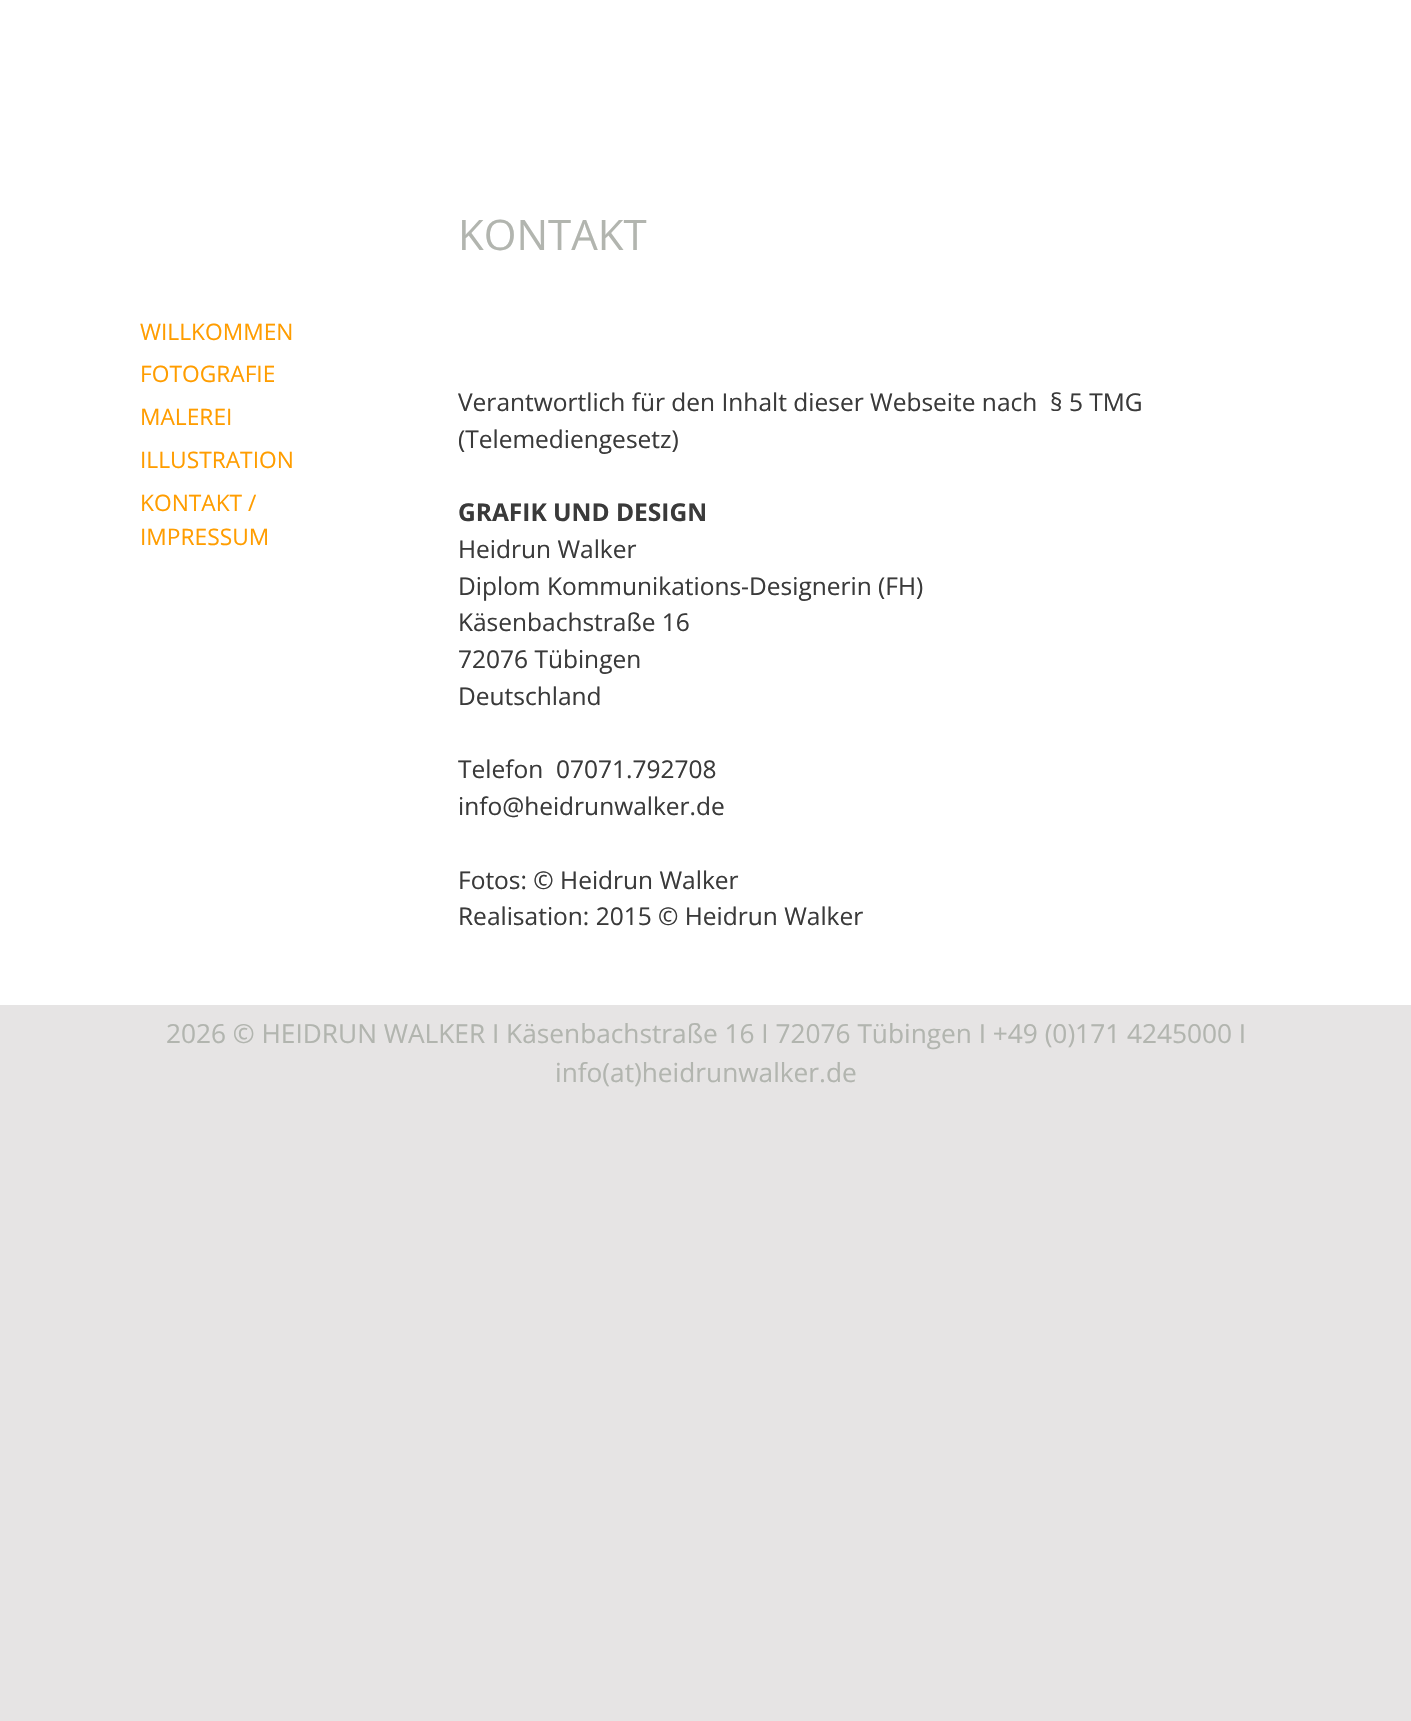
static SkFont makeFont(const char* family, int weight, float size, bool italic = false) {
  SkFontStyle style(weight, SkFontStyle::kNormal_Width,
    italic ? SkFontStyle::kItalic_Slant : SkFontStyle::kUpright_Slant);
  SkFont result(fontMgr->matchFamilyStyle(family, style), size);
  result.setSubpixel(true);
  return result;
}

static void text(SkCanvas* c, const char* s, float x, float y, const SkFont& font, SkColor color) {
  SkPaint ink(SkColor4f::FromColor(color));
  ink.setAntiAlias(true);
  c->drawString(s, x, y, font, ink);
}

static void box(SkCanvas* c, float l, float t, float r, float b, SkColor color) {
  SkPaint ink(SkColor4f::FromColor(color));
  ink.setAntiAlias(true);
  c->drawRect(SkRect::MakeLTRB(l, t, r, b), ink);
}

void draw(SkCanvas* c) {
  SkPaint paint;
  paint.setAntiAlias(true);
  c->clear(0xffe6e4e4);
  box(c, 0, 0, 1411, 1005, 0xffffffff);
  SkFont face1 = makeFont("Open Sans", 400, 22.75f);
  text(c, "WILLKOMMEN", 140, 340, face1, 0xffff9d00);
  text(c, "FOTOGRAFIE", 140, 382, face1, 0xffff9d00);
  text(c, "MALEREI", 140, 425, face1, 0xffff9d00);
  text(c, "ILLUSTRATION", 140, 468, face1, 0xffff9d00);
  text(c, "KONTAKT /", 140, 511, face1, 0xffff9d00);
  text(c, "IMPRESSUM", 140, 545, face1, 0xffff9d00);
  SkFont face2 = makeFont("Open Sans", 400, 42);
  text(c, "KONTAKT", 458, 250, face2, 0xffb2b5af);
  SkFont face3 = makeFont("Open Sans", 400, 24.5f);
  text(c, "Verantwortlich für den Inhalt dieser Webseite nach  § 5 TMG", 458, 411, face3, 0xff3a3a3a);
  text(c, "(Telemediengesetz)", 458, 448, face3, 0xff3a3a3a);
  SkFont face4 = makeFont("Open Sans", 700, 24.5f);
  text(c, "GRAFIK UND DESIGN", 458, 521, face4, 0xff3a3a3a);
  text(c, "Heidrun Walker", 458, 558, face3, 0xff3a3a3a);
  text(c, "Diplom Kommunikations-Designerin (FH)", 458, 595, face3, 0xff3a3a3a);
  text(c, "Käsenbachstraße 16", 458, 631, face3, 0xff3a3a3a);
  text(c, "72076 Tübingen", 458, 668, face3, 0xff3a3a3a);
  text(c, "Deutschland", 458, 705, face3, 0xff3a3a3a);
  text(c, "Telefon  07071.792708", 458, 778, face3, 0xff3a3a3a);
  text(c, "info@heidrunwalker.de", 458, 815, face3, 0xff3a3a3a);
  text(c, "Fotos: © Heidrun Walker", 458, 889, face3, 0xff3a3a3a);
  text(c, "Realisation: 2015 © Heidrun Walker", 458, 925, face3, 0xff3a3a3a);
  SkFont face5 = makeFont("Open Sans", 400, 26.25f);
  text(c, "2026 © HEIDRUN WALKER I Käsenbachstraße 16 I 72076 Tübingen I +49 (0)171 4245000 I", 166, 1043, face5, 0xffb2b5af);
  text(c, "info(at)heidrunwalker.de", 555, 1082, face5, 0xffb2b5af);
}
